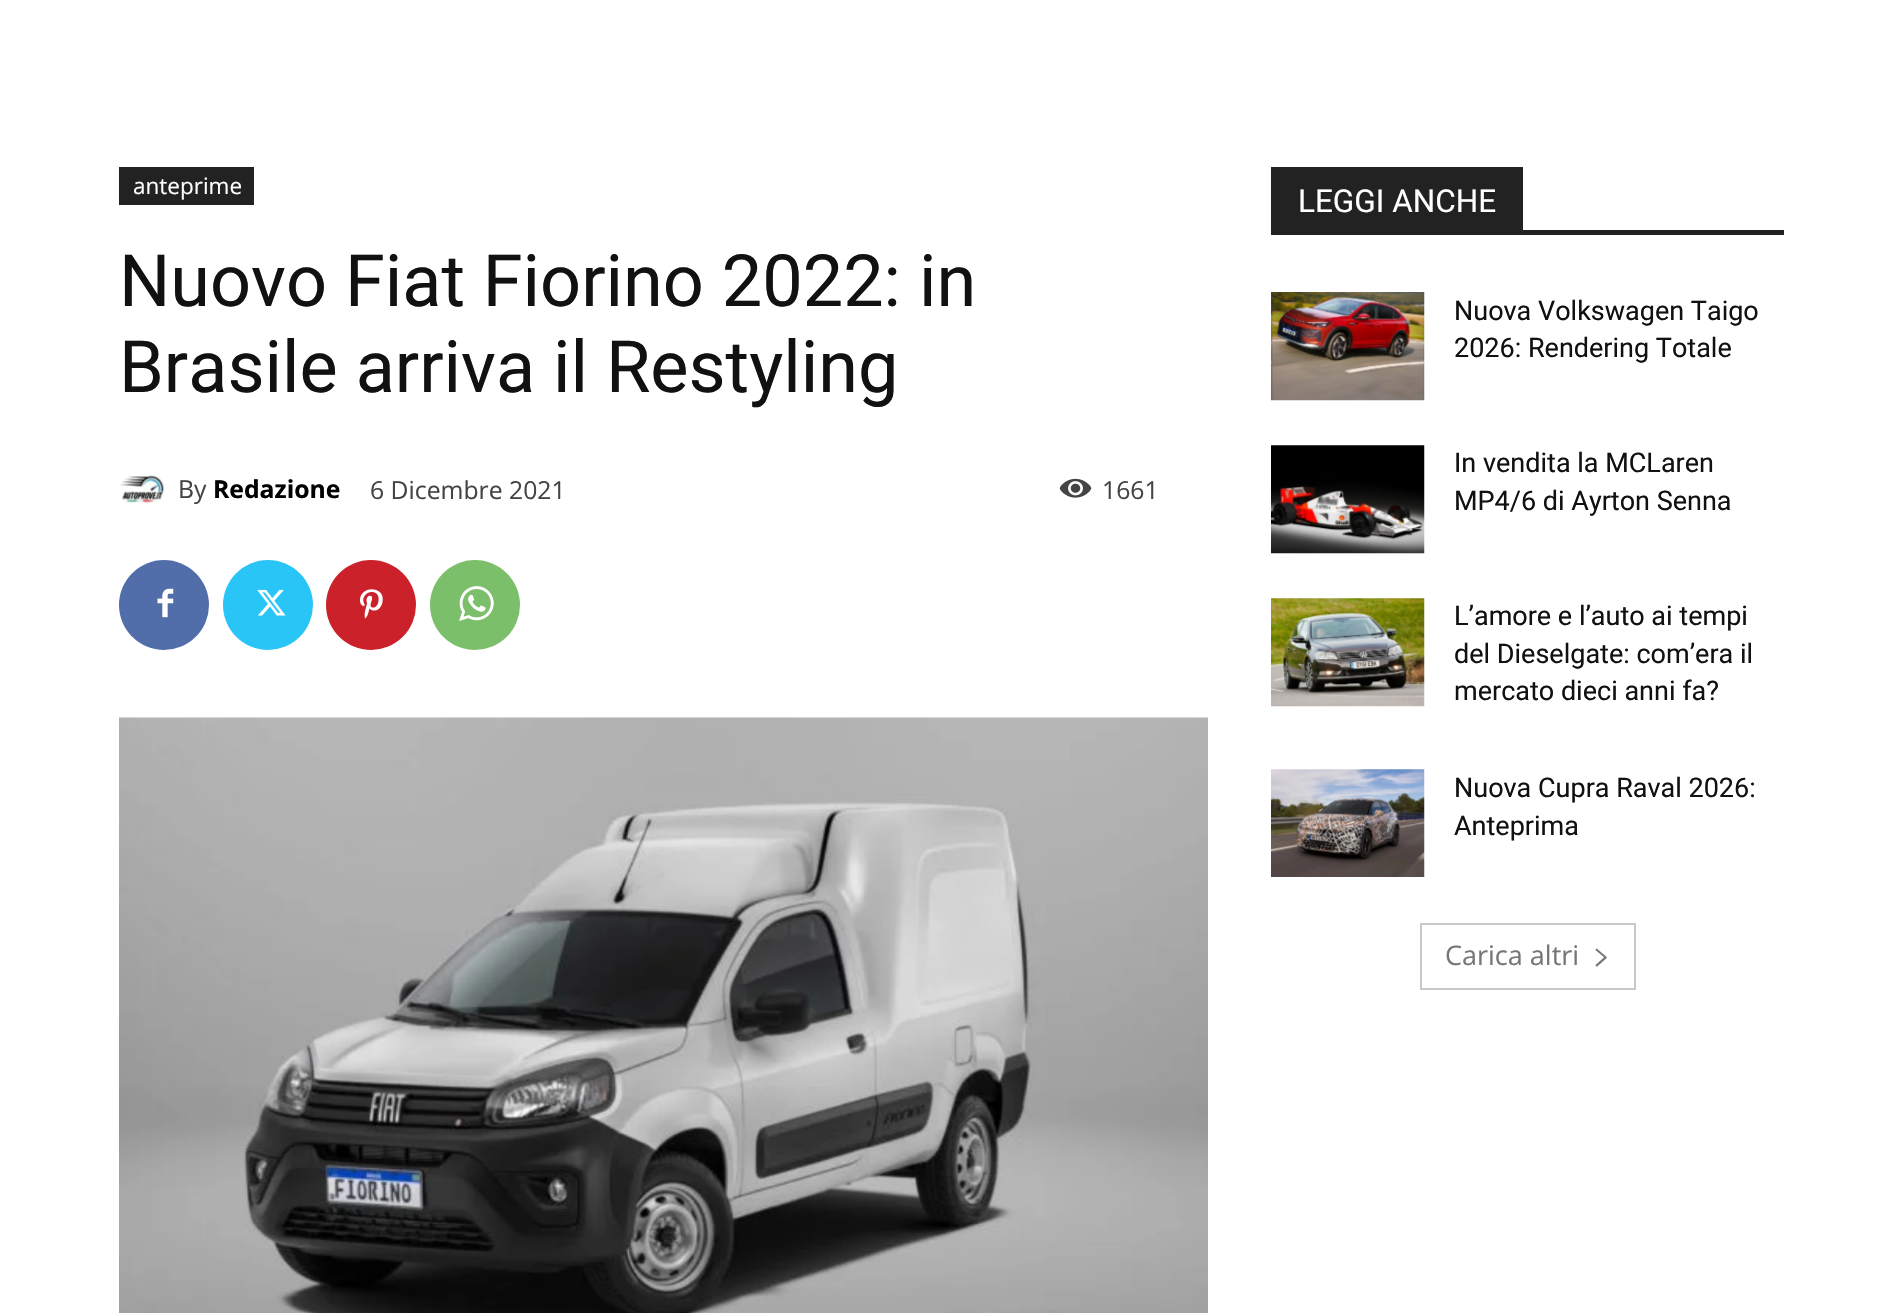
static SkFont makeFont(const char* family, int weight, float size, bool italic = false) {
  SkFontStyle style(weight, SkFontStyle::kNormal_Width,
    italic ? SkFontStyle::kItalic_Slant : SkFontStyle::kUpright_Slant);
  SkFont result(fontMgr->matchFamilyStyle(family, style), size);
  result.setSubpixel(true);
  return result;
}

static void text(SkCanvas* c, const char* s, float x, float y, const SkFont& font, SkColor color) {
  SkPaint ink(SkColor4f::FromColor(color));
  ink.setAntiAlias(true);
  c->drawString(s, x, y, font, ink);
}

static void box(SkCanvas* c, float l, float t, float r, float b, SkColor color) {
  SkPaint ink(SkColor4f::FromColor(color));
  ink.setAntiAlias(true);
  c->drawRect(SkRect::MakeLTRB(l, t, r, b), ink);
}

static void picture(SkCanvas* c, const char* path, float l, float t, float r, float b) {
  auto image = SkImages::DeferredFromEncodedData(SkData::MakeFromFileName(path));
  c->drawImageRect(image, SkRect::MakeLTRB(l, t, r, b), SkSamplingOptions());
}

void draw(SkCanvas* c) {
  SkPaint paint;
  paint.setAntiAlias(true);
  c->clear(0xffffffff);
  box(c, 119, 167, 254, 205, 0xff222222);
  SkFont face1 = makeFont("Open Sans", 400, 22.5f);
  text(c, "anteprime", 133, 194, face1, 0xffffffff);
  SkFont face2 = makeFont("Roboto", 400, 72);
  text(c, "Nuovo Fiat Fiorino 2022: in", 119, 306, face2, 0xff111111);
  text(c, "Brasile arriva il Restyling", 119, 392, face2, 0xff111111);
  picture(c, "img_01.png", 120, 474, 165, 504);
  SkFont face3 = makeFont("Open Sans", 400, 24.75f);
  text(c, "By", 178, 498, face3, 0xff444444);
  SkFont face4 = makeFont("Open Sans", 700, 24.75f);
  text(c, "Redazione", 213, 498, face4, 0xff000000);
  text(c, "6 Dicembre 2021", 370, 499, face3, 0xff444444);
  picture(c, "img_02.png", 1059, 478, 1092, 498);
  text(c, "1661", 1102, 499, face3, 0xff444444);
  paint.setColor(0xff516eab);
  c->drawCircle(164, 605, 45, paint);
  picture(c, "img_03.png", 157, 588, 174, 618);
  paint.setColor(0xff29c5f6);
  c->drawCircle(268, 605, 45, paint);
  picture(c, "img_04.png", 257, 589, 286, 616);
  paint.setColor(0xffca212a);
  c->drawCircle(371, 605, 45, paint);
  picture(c, "img_05.png", 360, 589, 383, 619);
  paint.setColor(0xff7bbf6a);
  c->drawCircle(475, 605, 45, paint);
  picture(c, "img_06.png", 459, 586, 494, 621);
  picture(c, "img_07.png", 119, 717, 1208, 1313);
  box(c, 1271, 230, 1784, 235, 0xff222222);
  box(c, 1271, 167, 1523, 230, 0xff222222);
  SkFont face5 = makeFont("Roboto", 400, 31.5f);
  text(c, "LEGGI ANCHE", 1298, 212, face5, 0xffffffff);
  picture(c, "img_08.png", 1271, 292, 1425, 401);
  SkFont face6 = makeFont("Roboto", 400, 27);
  text(c, "Nuova Volkswagen Taigo", 1454, 320, face6, 0xff111111);
  text(c, "2026: Rendering Totale", 1454, 357, face6, 0xff111111);
  picture(c, "img_09.png", 1271, 445, 1425, 554);
  text(c, "In vendita la MCLaren", 1454, 472, face6, 0xff111111);
  text(c, "MP4/6 di Ayrton Senna", 1454, 510, face6, 0xff111111);
  picture(c, "img_10.png", 1271, 598, 1425, 707);
  text(c, "L’amore e l’auto ai tempi", 1454, 625, face6, 0xff111111);
  text(c, "del Dieselgate: com’era il", 1454, 663, face6, 0xff111111);
  text(c, "mercato dieci anni fa?", 1454, 700, face6, 0xff111111);
  picture(c, "img_11.png", 1271, 769, 1425, 877);
  text(c, "Nuova Cupra Raval 2026:", 1454, 797, face6, 0xff111111);
  text(c, "Anteprima", 1454, 835, face6, 0xff111111);
  paint.setStyle(SkPaint::kStroke_Style);
  paint.setStrokeWidth(2);
  paint.setColor(0xffc9c9c9);
  c->drawRect(SkRect::MakeLTRB(1421, 924, 1635, 989), paint);
  SkFont face7 = makeFont("Open Sans", 400, 27);
  text(c, "Carica altri", 1445, 965, face7, 0xff767676);
  picture(c, "img_12.png", 1595, 948, 1607, 967);
}
